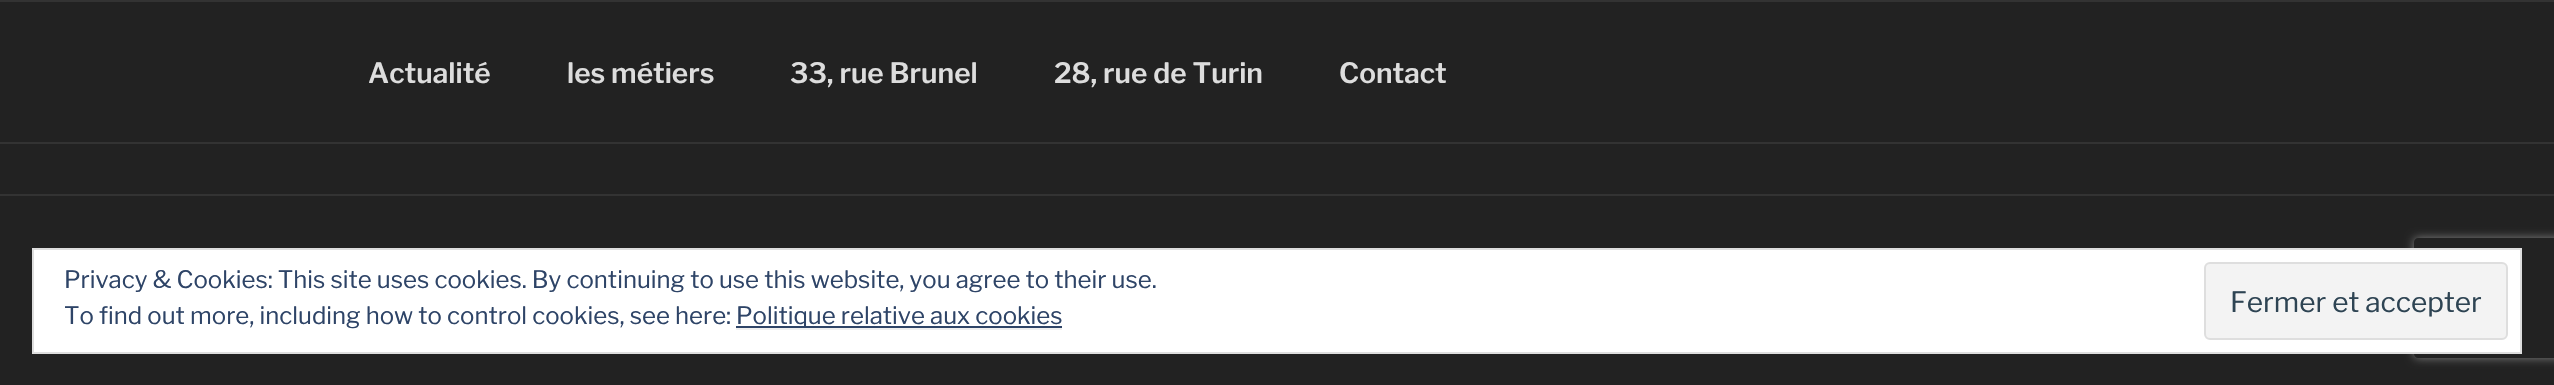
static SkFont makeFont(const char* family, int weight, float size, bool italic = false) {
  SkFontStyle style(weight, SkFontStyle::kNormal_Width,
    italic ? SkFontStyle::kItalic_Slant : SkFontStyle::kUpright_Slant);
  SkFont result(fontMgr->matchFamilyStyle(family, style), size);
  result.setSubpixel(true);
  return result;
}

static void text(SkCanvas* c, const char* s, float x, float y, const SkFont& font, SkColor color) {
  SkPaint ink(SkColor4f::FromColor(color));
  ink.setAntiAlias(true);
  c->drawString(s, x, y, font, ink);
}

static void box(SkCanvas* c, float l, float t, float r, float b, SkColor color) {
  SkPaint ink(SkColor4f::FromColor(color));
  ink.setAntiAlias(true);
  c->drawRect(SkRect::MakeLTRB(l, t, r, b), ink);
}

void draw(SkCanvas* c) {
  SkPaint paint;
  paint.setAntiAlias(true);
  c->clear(0xff222222);
  box(c, 0, 0, 2554, 2, 0xff333333);
  box(c, 0, 142, 2554, 144, 0xff333333);
  SkFont face1 = makeFont("Libre Franklin", 100, 28);
  text(c, "Actualité", 368, 83, face1, 0xffdddddd);
  text(c, "les métiers", 567, 83, face1, 0xffdddddd);
  text(c, "33, rue Brunel", 790, 83, face1, 0xffdddddd);
  text(c, "28, rue de Turin", 1054, 83, face1, 0xffdddddd);
  text(c, "Contact", 1339, 83, face1, 0xffdddddd);
  box(c, 0, 194, 2554, 196, 0xff333333);
  c->save();
  c->clipPath(SkPathBuilder(SkPathFillType::kEvenOdd).moveTo(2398, 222).lineTo(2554, 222).lineTo(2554, 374).lineTo(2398, 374).close().moveTo(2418, 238).lineTo(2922, 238).cubicTo(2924, 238, 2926, 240, 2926, 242).lineTo(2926, 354).cubicTo(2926, 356, 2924, 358, 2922, 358).lineTo(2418, 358).cubicTo(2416, 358, 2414, 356, 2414, 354).lineTo(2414, 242).cubicTo(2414, 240, 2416, 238, 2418, 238).close().detach(), true);
  paint.setColor(0xff808080);
  paint.setMaskFilter(SkMaskFilter::MakeBlur(kNormal_SkBlurStyle, 5));
  c->drawRoundRect(SkRect::MakeLTRB(2414, 238, 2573, 358), 4, 4, paint);
  paint.setMaskFilter(nullptr);
  c->restore();
  paint.setColor(0xffffffff);
  c->drawRect(SkRect::MakeLTRB(33, 249, 2521, 353), paint);
  paint.setStyle(SkPaint::kStroke_Style);
  paint.setStrokeWidth(2);
  paint.setColor(0xffdedede);
  c->drawRect(SkRect::MakeLTRB(33, 249, 2521, 353), paint);
  SkFont face2 = makeFont("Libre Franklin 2", 100, 24);
  text(c, "Privacy & Cookies: This site uses cookies. By continuing to use this website, you agree to their use.", 64, 288, face2, 0xff2e4467);
  text(c, "To find out more, including how to control cookies, see here:", 64, 324, face2, 0xff2e4467);
  box(c, 736, 326, 1062, 328, 0xff2e4467);
  text(c, "Politique relative aux cookies", 736, 324, face2, 0xff2e4467);
  box(c, 736, 328, 1062, 330, 0xfff0f0f0);
  paint.setStyle(SkPaint::kFill_Style);
  paint.setColor(0xfff3f3f3);
  c->drawRoundRect(SkRect::MakeLTRB(2205, 263, 2507, 339), 5, 5, paint);
  paint.setStyle(SkPaint::kStroke_Style);
  paint.setColor(0xffdedede);
  c->drawRoundRect(SkRect::MakeLTRB(2205, 263, 2507, 339), 5, 5, paint);
  SkFont face3 = makeFont("Libre Franklin 2", 100, 28);
  text(c, "Fermer et accepter", 2230, 312, face3, 0xff2e4453);
}
